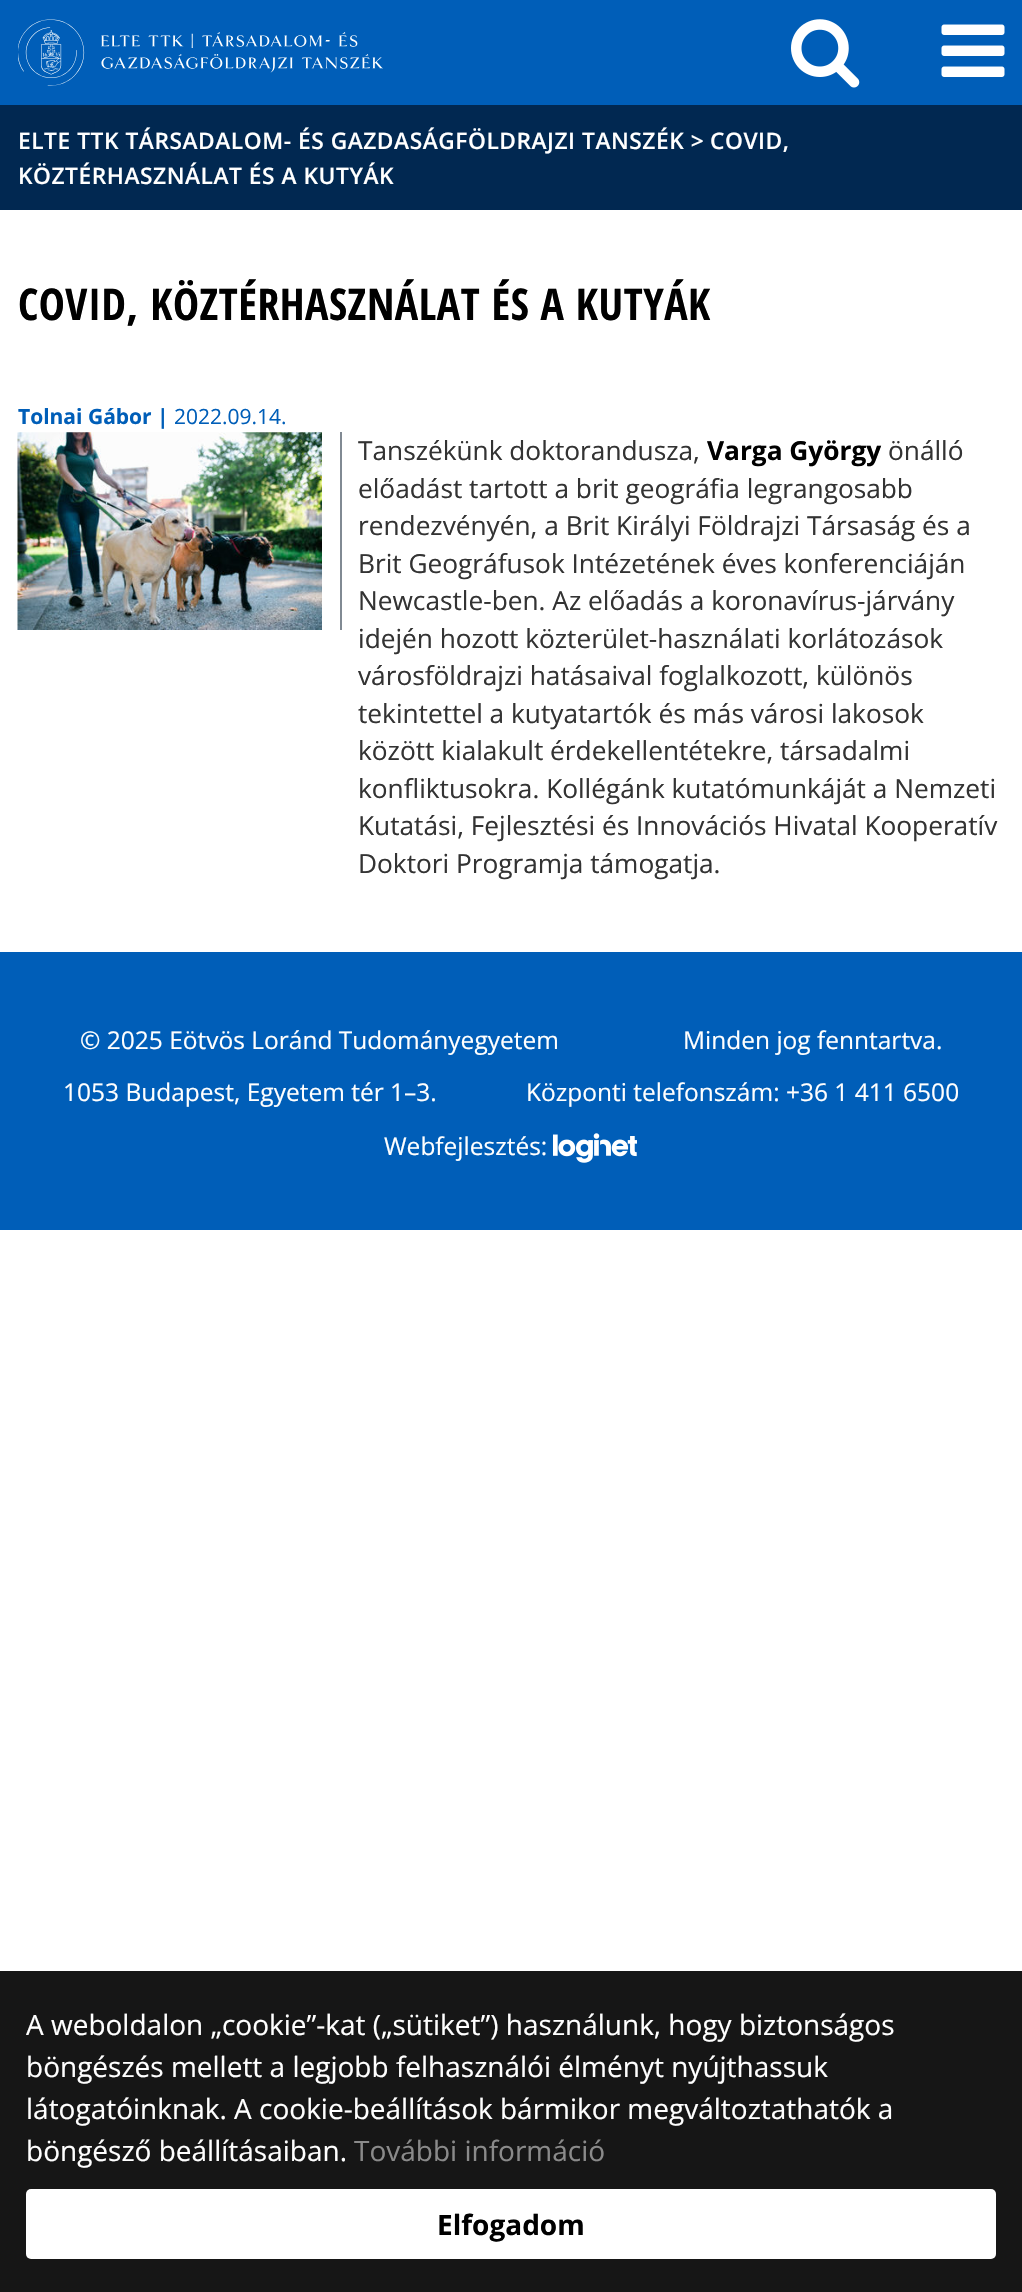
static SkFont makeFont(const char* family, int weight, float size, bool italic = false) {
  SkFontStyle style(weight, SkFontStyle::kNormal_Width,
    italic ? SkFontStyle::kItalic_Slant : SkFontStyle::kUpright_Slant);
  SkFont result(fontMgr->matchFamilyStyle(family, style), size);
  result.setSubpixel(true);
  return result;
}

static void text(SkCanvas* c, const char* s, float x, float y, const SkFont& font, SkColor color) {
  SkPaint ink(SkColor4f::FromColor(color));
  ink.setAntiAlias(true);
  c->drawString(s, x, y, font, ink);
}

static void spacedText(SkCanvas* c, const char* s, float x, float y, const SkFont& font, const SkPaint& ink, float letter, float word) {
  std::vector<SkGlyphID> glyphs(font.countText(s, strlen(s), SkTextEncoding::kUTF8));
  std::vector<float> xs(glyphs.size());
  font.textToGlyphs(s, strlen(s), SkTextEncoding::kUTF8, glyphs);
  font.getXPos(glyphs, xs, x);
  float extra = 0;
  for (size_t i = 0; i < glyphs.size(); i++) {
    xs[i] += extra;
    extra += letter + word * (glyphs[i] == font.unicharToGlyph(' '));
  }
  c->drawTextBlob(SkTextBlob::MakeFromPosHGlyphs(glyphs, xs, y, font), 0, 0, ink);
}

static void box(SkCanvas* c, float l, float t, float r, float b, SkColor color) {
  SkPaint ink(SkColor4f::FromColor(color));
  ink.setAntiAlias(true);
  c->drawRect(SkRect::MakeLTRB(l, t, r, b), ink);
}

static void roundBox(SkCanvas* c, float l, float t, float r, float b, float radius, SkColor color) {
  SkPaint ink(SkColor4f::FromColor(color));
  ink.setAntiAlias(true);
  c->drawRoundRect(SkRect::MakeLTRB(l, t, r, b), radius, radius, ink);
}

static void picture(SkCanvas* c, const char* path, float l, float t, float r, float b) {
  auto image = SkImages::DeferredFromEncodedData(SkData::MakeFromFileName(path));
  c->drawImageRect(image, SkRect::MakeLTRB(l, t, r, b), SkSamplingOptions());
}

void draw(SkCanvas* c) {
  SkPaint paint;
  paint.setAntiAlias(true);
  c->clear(0xffffffff);
  box(c, 0, 0, 1022, 105, 0xff005eb8);
  picture(c, "img_01.png", 18, 19, 383, 86);
  picture(c, "img_02.png", 791, 19, 860, 88);
  picture(c, "img_03.png", 941, 24, 1005, 77);
  box(c, 0, 105, 1022, 210, 0xff012851);
  SkFont face1 = makeFont("Open Sans", 600, 22.75f);
  paint.setColor(0xffffffff);
  spacedText(c, "ELTE TTK TÁRSADALOM- ÉS GAZDASÁGFÖLDRAJZI TANSZÉK >", 18, 149, face1, paint, 0.53f, 0);
  spacedText(c, "COVID,", 710, 149, face1, paint, 0.53f, 0);
  spacedText(c, "KÖZTÉRHASZNÁLAT ÉS A KUTYÁK", 18, 184, face1, paint, 0.53f, 0);
  SkFont face2 = makeFont("Open Sans Condensed", 700, 43.75f);
  paint.setColor(0xff000000);
  spacedText(c, "COVID, KÖZTÉRHASZNÁLAT ÉS A KUTYÁK", 18, 320, face2, paint, 0.53f, 0);
  SkFont face3 = makeFont("Open Sans", 700, 21);
  text(c, "Tolnai Gábor |", 18, 424, face3, 0xff005eb8);
  SkFont face4 = makeFont("Open Sans", 400, 21);
  text(c, "2022.09.14.", 174, 424, face4, 0xff005eb8);
  box(c, 340, 432, 342, 630, 0xff818a93);
  picture(c, "img_04.png", 17, 432, 322, 630);
  SkFont face5 = makeFont("Open Sans", 400, 26.25f);
  text(c, "Tanszékünk doktorandusza,", 358, 460, face5, 0xff333333);
  SkFont face6 = makeFont("Open Sans", 700, 26.25f);
  text(c, "Varga György", 707, 460, face6, 0xff000000);
  text(c, "önálló", 888, 460, face5, 0xff333333);
  text(c, "előadást tartott a brit geográfia legrangosabb", 358, 498, face5, 0xff333333);
  text(c, "rendezvényén, a Brit Királyi Földrajzi Társaság és a", 358, 535, face5, 0xff333333);
  text(c, "Brit Geográfusok Intézetének éves konferenciáján", 358, 573, face5, 0xff333333);
  text(c, "Newcastle-ben. Az előadás a koronavírus-járvány", 358, 610, face5, 0xff333333);
  text(c, "idején hozott közterület-használati korlátozások", 358, 648, face5, 0xff333333);
  text(c, "városföldrajzi hatásaival foglalkozott, különös", 358, 685, face5, 0xff333333);
  text(c, "tekintettel a kutyatartók és más városi lakosok", 358, 723, face5, 0xff333333);
  text(c, "között kialakult érdekellentétekre, társadalmi", 358, 760, face5, 0xff333333);
  text(c, "konfliktusokra. Kollégánk kutatómunkáját a Nemzeti", 358, 798, face5, 0xff333333);
  text(c, "Kutatási, Fejlesztési és Innovációs Hivatal Kooperatív", 358, 835, face5, 0xff333333);
  text(c, "Doktori Programja támogatja.", 358, 873, face5, 0xff333333);
  box(c, 0, 952, 1022, 1230, 0xff005eb8);
  SkFont face7 = makeFont("Open Sans", 400, 24.5f);
  text(c, "© 2025 Eötvös Loránd Tudományegyetem", 80, 1049, face7, 0xffffffff);
  text(c, "Minden jog fenntartva.", 683, 1049, face7, 0xffffffff);
  text(c, "1053 Budapest, Egyetem tér 1–3.", 63, 1101, face7, 0xffffffff);
  text(c, "Központi telefonszám: +36 1 411 6500", 526, 1101, face7, 0xffffffff);
  text(c, "Webfejlesztés:", 384, 1155, face7, 0xffffffff);
  picture(c, "img_05.png", 553, 1133, 637, 1163);
  box(c, 0, 1971, 1022, 2292, 0xff161616);
  SkFont face8 = makeFont("Open Sans", 400, 28);
  text(c, "A weboldalon „cookie”-kat („sütiket”) használunk, hogy biztonságos", 26, 2035, face8, 0xffffffff);
  text(c, "böngészés mellett a legjobb felhasználói élményt nyújthassuk", 26, 2077, face8, 0xffffffff);
  text(c, "látogatóinknak. A cookie-beállítások bármikor megváltoztathatók a", 26, 2119, face8, 0xffffffff);
  text(c, "böngésző beállításaiban.", 26, 2161, face8, 0xffffffff);
  text(c, "További információ", 354, 2161, face8, 0xff8a8a8a);
  roundBox(c, 26, 2189, 996, 2259, 5, 0xffffffff);
  SkFont face9 = makeFont("Open Sans", 700, 28);
  text(c, "Elfogadom", 437, 2235, face9, 0xff000000);
}
